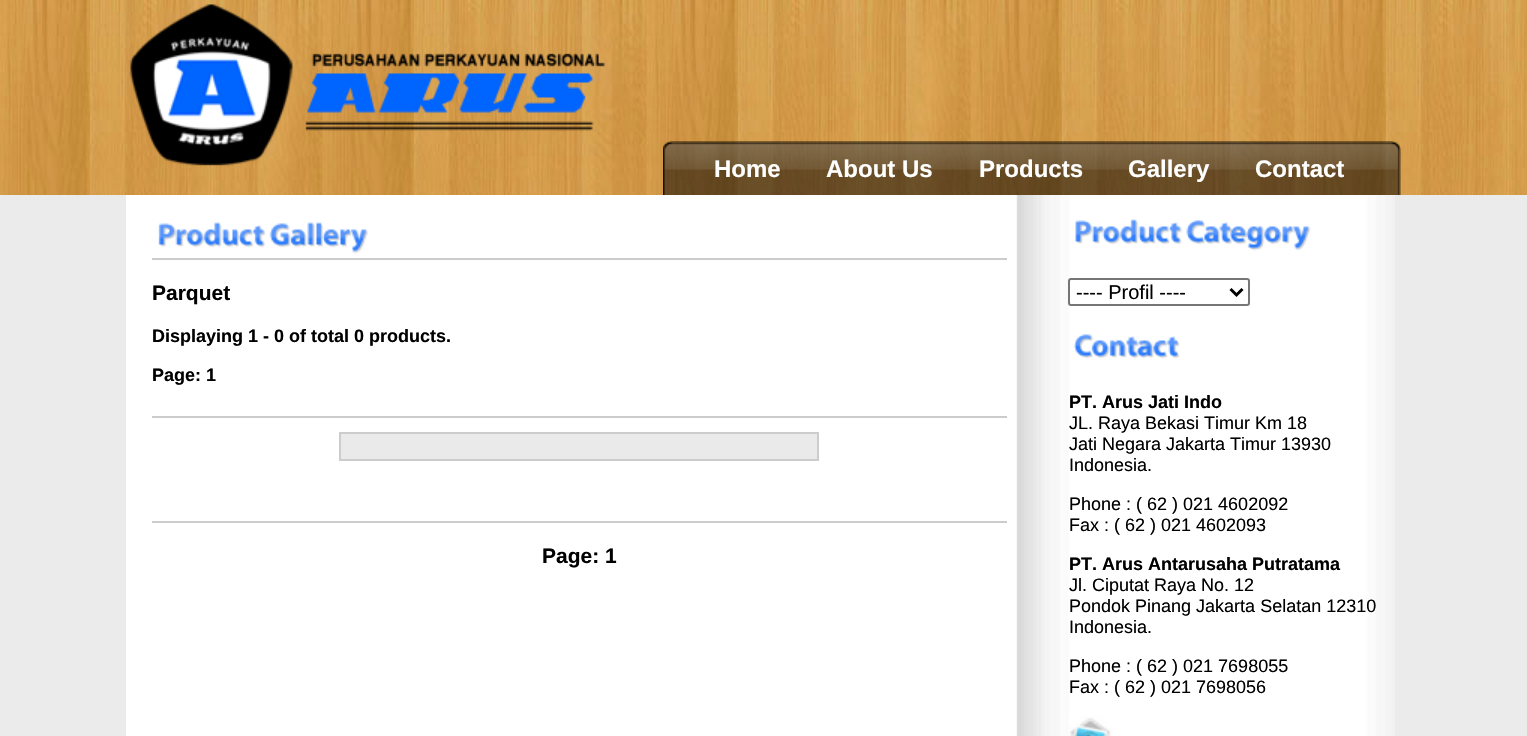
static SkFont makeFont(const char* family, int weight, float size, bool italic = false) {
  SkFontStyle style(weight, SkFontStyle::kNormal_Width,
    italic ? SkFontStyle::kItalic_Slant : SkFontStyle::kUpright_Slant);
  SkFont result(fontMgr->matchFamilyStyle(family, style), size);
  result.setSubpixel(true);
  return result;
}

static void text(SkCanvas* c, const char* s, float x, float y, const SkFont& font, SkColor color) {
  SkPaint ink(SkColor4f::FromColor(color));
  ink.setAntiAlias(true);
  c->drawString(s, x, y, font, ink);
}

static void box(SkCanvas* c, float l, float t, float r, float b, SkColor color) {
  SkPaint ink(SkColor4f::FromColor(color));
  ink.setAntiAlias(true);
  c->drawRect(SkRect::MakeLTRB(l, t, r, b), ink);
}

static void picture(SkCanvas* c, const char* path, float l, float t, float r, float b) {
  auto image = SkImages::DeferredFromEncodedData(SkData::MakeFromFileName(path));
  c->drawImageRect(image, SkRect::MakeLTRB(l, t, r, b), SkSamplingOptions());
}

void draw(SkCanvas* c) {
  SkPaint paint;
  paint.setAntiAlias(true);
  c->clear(0xffebebeb);
  picture(c, "img_01.png", 0, 0, 1527, 195);
  picture(c, "img_02.png", 130, 4, 605, 166);
  picture(c, "img_03.png", 663, 141, 1401, 195);
  SkFont face1 = makeFont("Liberation Sans", 700, 24);
  text(c, "Home", 714, 177, face1, 0xffffffff);
  text(c, "About Us", 826, 177, face1, 0xffffffff);
  text(c, "Products", 979, 177, face1, 0xffffffff);
  text(c, "Gallery", 1128, 177, face1, 0xffffffff);
  text(c, "Contact", 1255, 177, face1, 0xffffffff);
  picture(c, "img_04.png", 126, 195, 1395, 736);
  box(c, 152, 258, 1007, 260, 0xffcccccc);
  picture(c, "img_05.png", 158, 221, 368, 254);
  SkFont face2 = makeFont("Liberation Sans", 700, 21);
  text(c, "Parquet", 152, 300, face2, 0xff000000);
  SkFont face3 = makeFont("Liberation Sans", 700, 18);
  text(c, "Displaying 1 - 0 of total 0 products.", 152, 342, face3, 0xff000000);
  text(c, "Page: 1", 152, 381, face3, 0xff000000);
  box(c, 152, 416, 1007, 418, 0xffcccccc);
  paint.setColor(0xffeaeaea);
  c->drawRect(SkRect::MakeLTRB(340, 433, 818, 460), paint);
  paint.setStyle(SkPaint::kStroke_Style);
  paint.setStrokeWidth(2);
  paint.setColor(0xffcccccc);
  c->drawRect(SkRect::MakeLTRB(340, 433, 818, 460), paint);
  box(c, 152, 521, 1007, 523, 0xffcccccc);
  text(c, "Page: 1", 542, 563, face2, 0xff000000);
  picture(c, "img_06.png", 1075, 218, 1311, 251);
  paint.setStyle(SkPaint::kFill_Style);
  paint.setColor(0xffffffff);
  c->drawRoundRect(SkRect::MakeLTRB(1069, 279, 1249, 305), 2, 2, paint);
  paint.setStyle(SkPaint::kStroke_Style);
  paint.setColor(0xff767676);
  c->drawRoundRect(SkRect::MakeLTRB(1069, 279, 1249, 305), 2, 2, paint);
  paint.setStrokeWidth(3);
  paint.setColor(0xff000000);
  c->drawPath(SkPathBuilder().moveTo(1230.5f, 289).lineTo(1236.5f, 295).lineTo(1242.5f, 289).detach(), paint);
  SkFont face4 = makeFont("Liberation Sans", 400, 20);
  text(c, "---- Profil ----", 1076, 299, face4, 0xff000000);
  picture(c, "img_07.png", 1073, 334, 1180, 359);
  text(c, "PT. Arus Jati Indo", 1069, 408, face3, 0xff000000);
  SkFont face5 = makeFont("Liberation Sans", 400, 18);
  text(c, "JL. Raya Bekasi Timur Km 18", 1069, 429, face5, 0xff000000);
  text(c, "Jati Negara Jakarta Timur 13930", 1069, 450, face5, 0xff000000);
  text(c, "Indonesia.", 1069, 471, face5, 0xff000000);
  text(c, "Phone : ( 62 ) 021 4602092", 1069, 510, face5, 0xff000000);
  text(c, "Fax : ( 62 ) 021 4602093", 1069, 531, face5, 0xff000000);
  text(c, "PT. Arus Antarusaha Putratama", 1069, 570, face3, 0xff000000);
  text(c, "Jl. Ciputat Raya No. 12", 1069, 591, face5, 0xff000000);
  text(c, "Pondok Pinang Jakarta Selatan 12310", 1069, 612, face5, 0xff000000);
  text(c, "Indonesia.", 1069, 633, face5, 0xff000000);
  text(c, "Phone : ( 62 ) 021 7698055", 1069, 672, face5, 0xff000000);
  text(c, "Fax : ( 62 ) 021 7698056", 1069, 693, face5, 0xff000000);
  picture(c, "img_08.png", 1069, 716, 1113, 736);
}
